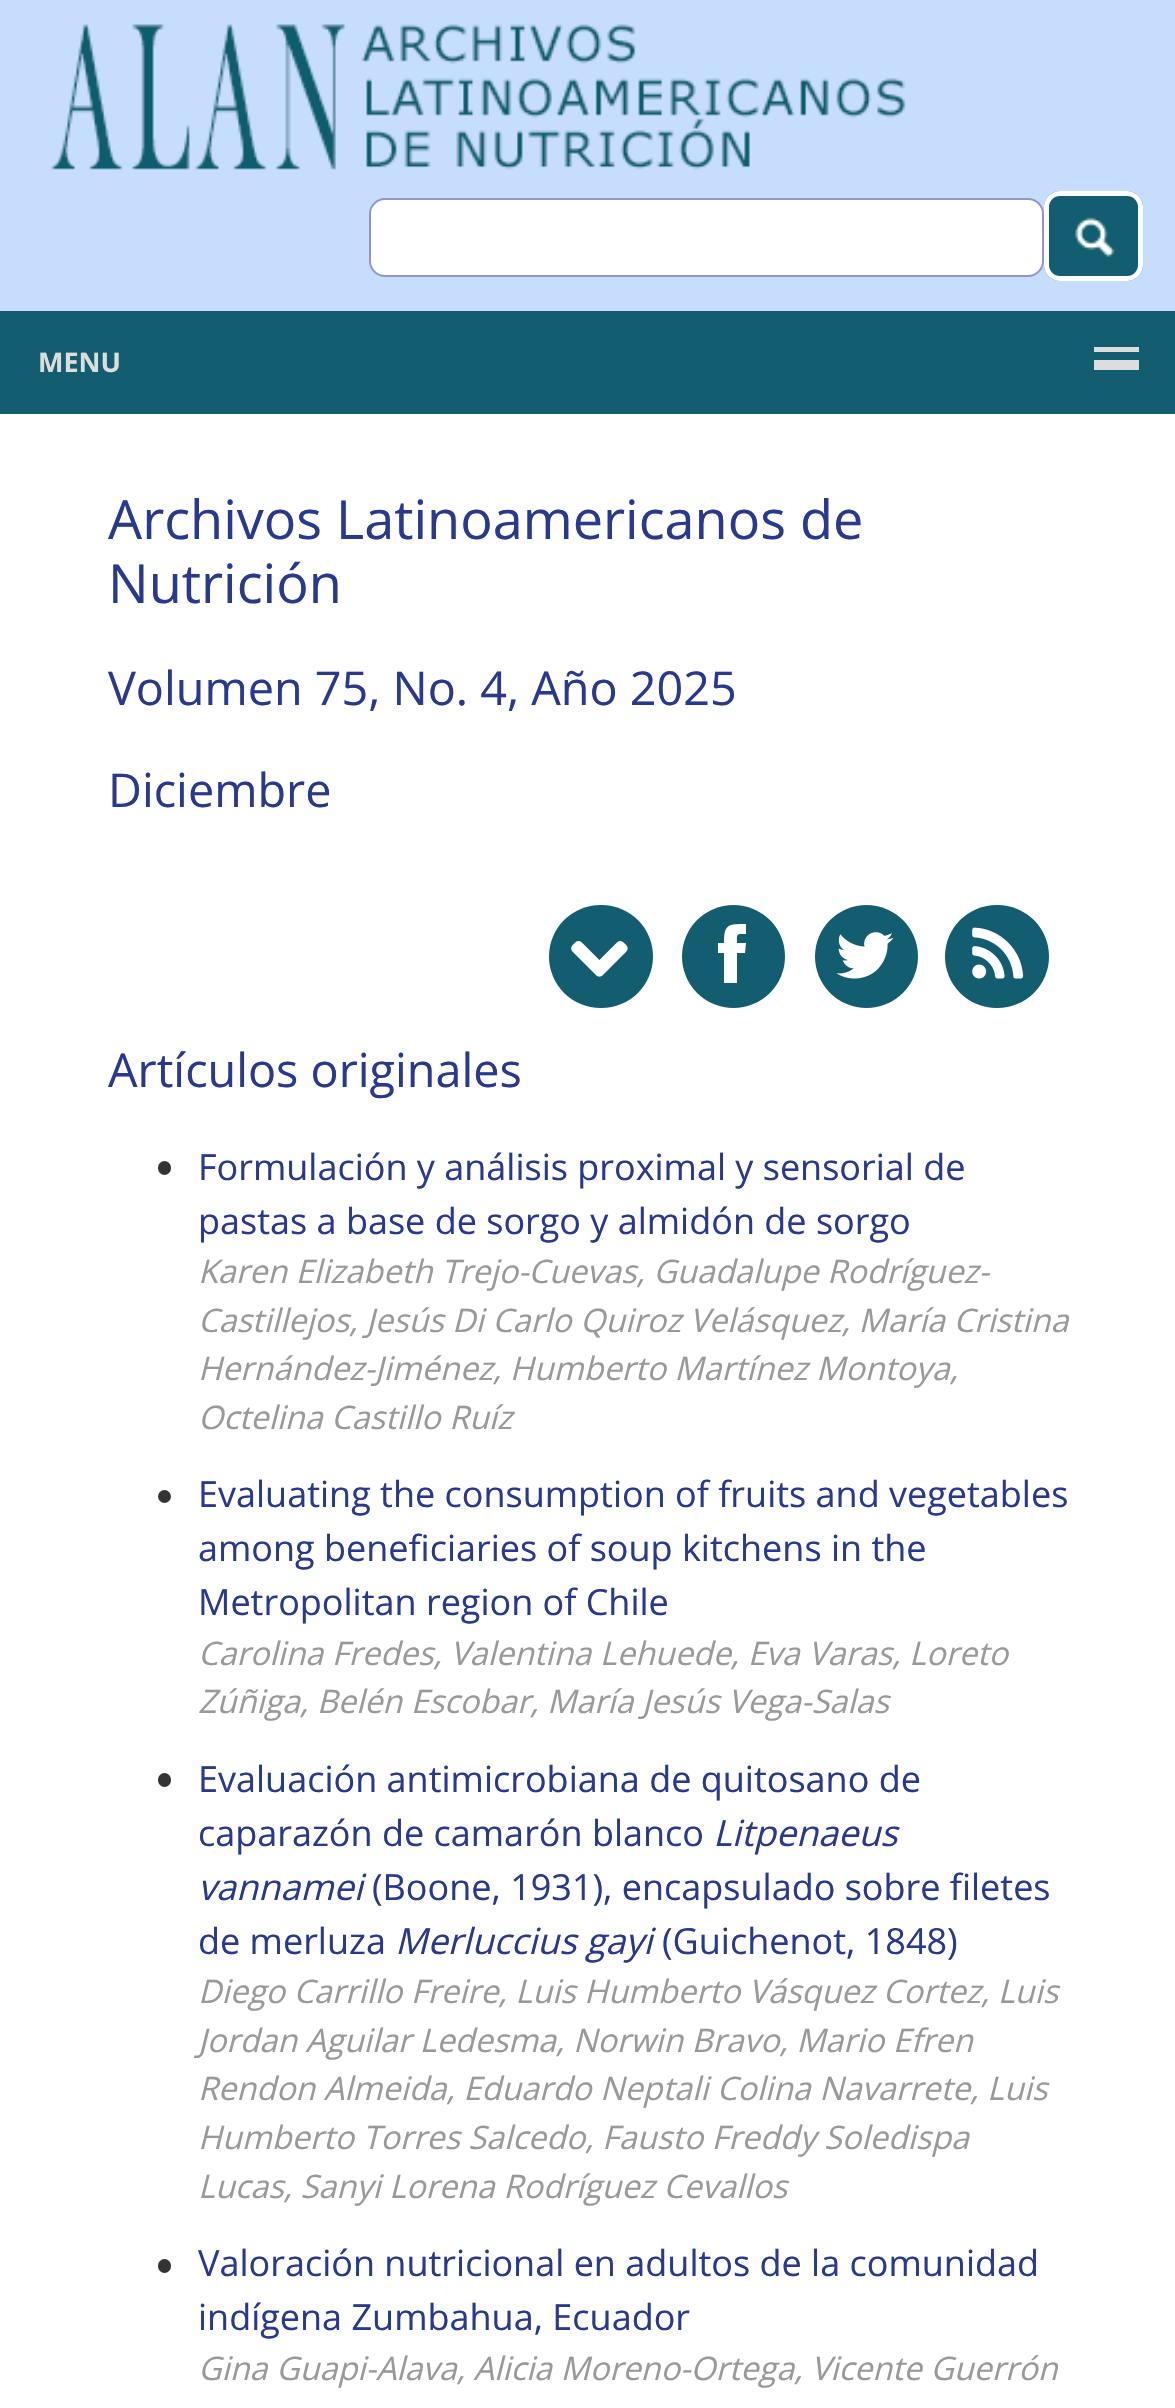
static SkFont makeFont(const char* family, int weight, float size, bool italic = false) {
  SkFontStyle style(weight, SkFontStyle::kNormal_Width,
    italic ? SkFontStyle::kItalic_Slant : SkFontStyle::kUpright_Slant);
  SkFont result(fontMgr->matchFamilyStyle(family, style), size);
  result.setSubpixel(true);
  return result;
}

static void text(SkCanvas* c, const char* s, float x, float y, const SkFont& font, SkColor color) {
  SkPaint ink(SkColor4f::FromColor(color));
  ink.setAntiAlias(true);
  c->drawString(s, x, y, font, ink);
}

static void box(SkCanvas* c, float l, float t, float r, float b, SkColor color) {
  SkPaint ink(SkColor4f::FromColor(color));
  ink.setAntiAlias(true);
  c->drawRect(SkRect::MakeLTRB(l, t, r, b), ink);
}

static void roundBox(SkCanvas* c, float l, float t, float r, float b, float radius, SkColor color) {
  SkPaint ink(SkColor4f::FromColor(color));
  ink.setAntiAlias(true);
  c->drawRoundRect(SkRect::MakeLTRB(l, t, r, b), radius, radius, ink);
}

static void picture(SkCanvas* c, const char* path, float l, float t, float r, float b) {
  auto image = SkImages::DeferredFromEncodedData(SkData::MakeFromFileName(path));
  c->drawImageRect(image, SkRect::MakeLTRB(l, t, r, b), SkSamplingOptions());
}

void draw(SkCanvas* c) {
  SkPaint paint;
  paint.setAntiAlias(true);
  c->clear(0xffc6ddfd);
  picture(c, "img_01.png", 51, 24, 906, 170);
  paint.setColor(0xffffffff);
  c->drawRoundRect(SkRect::MakeLTRB(370, 199, 1043, 276), 15, 15, paint);
  paint.setStyle(SkPaint::kStroke_Style);
  paint.setStrokeWidth(2);
  paint.setColor(0xff9295c9);
  c->drawRoundRect(SkRect::MakeLTRB(370, 199, 1043, 276), 15, 15, paint);
  roundBox(c, 1044, 191, 1143, 281, 16, 0xff125d6f);
  picture(c, "img_02.png", 1075, 217, 1115, 258);
  paint.setStrokeWidth(5);
  paint.setColor(0xffffffff);
  c->drawRoundRect(SkRect::MakeLTRB(1046.5f, 193.5f, 1140.5f, 278.5f), 13.5f, 13.5f, paint);
  box(c, 0, 311, 1175, 414, 0xff125d6f);
  box(c, 1094, 347, 1139, 352, 0xffdddddd);
  SkFont face1 = makeFont("Open Sans", 700, 27);
  text(c, "MENU", 38, 372, face1, 0xffdddddd);
  box(c, 1094, 360, 1139, 370, 0xffdddddd);
  box(c, 0, 414, 1175, 2408, 0xffffffff);
  SkFont face2 = makeFont("Open Sans", 400, 54);
  text(c, "Archivos Latinoamericanos de", 108, 539, face2, 0xff28398f);
  text(c, "Nutrición", 108, 603, face2, 0xff28398f);
  SkFont face3 = makeFont("Open Sans", 400, 46.75f);
  text(c, "Volumen 75, No. 4, Año 2025", 108, 705, face3, 0xff28398f);
  text(c, "Diciembre", 108, 807, face3, 0xff28398f);
  roundBox(c, 549, 905, 653, 1008, 51.5f, 0xff125d6f);
  picture(c, "img_03.png", 571, 941, 628, 977);
  paint.setStyle(SkPaint::kFill_Style);
  paint.setColor(0xff125d6f);
  c->drawCircle(733.5f, 956.5f, 51.5f, paint);
  paint.setColor(0xffffffff);
  c->drawPath(SkPathBuilder().moveTo(737, 943).cubicTo(737, 933, 736, 934, 746, 934).lineTo(746, 924).cubicTo(728, 924, 724, 924, 724, 943).lineTo(718, 943).lineTo(718, 953).lineTo(724, 953).lineTo(724, 983).lineTo(737, 983).lineTo(737, 953).lineTo(745, 953).lineTo(746, 943).close().detach(), paint);
  paint.setColor(0xff125d6f);
  c->drawCircle(866.5f, 956.5f, 51.5f, paint);
  picture(c, "img_04.png", 836, 932, 894, 979);
  roundBox(c, 945, 905, 1049, 1008, 51.5f, 0xff125d6f);
  picture(c, "img_05.png", 972, 927, 1024, 979);
  text(c, "Artículos originales", 108, 1087, face3, 0xff28398f);
  roundBox(c, 158, 1161, 171, 1175, 6.5f, 0xff333333);
  SkFont face4 = makeFont("Open Sans", 400, 36);
  text(c, "Formulación y análisis proximal y sensorial de", 198, 1180, face4, 0xff28398f);
  text(c, "pastas a base de sorgo y almidón de sorgo", 198, 1234, face4, 0xff28398f);
  SkFont face5 = makeFont("Open Sans", 400, 32.4f, true);
  text(c, "Karen Elizabeth Trejo-Cuevas, Guadalupe Rodríguez-", 198, 1283, face5, 0xff999999);
  text(c, "Castillejos, Jesús Di Carlo Quiroz Velásquez, María Cristina", 198, 1332, face5, 0xff999999);
  text(c, "Hernández-Jiménez, Humberto Martínez Montoya,", 198, 1380, face5, 0xff999999);
  text(c, "Octelina Castillo Ruíz", 198, 1429, face5, 0xff999999);
  paint.setColor(0xff333333);
  c->drawCircle(164.5f, 1496.5f, 6.5f, paint);
  text(c, "Evaluating the consumption of fruits and vegetables", 198, 1507, face4, 0xff28398f);
  text(c, "among beneficiaries of soup kitchens in the", 198, 1561, face4, 0xff28398f);
  text(c, "Metropolitan region of Chile", 198, 1615, face4, 0xff28398f);
  text(c, "Carolina Fredes, Valentina Lehuede, Eva Varas, Loreto", 198, 1665, face5, 0xff999999);
  text(c, "Zúñiga, Belén Escobar, María Jesús Vega-Salas", 198, 1713, face5, 0xff999999);
  roundBox(c, 158, 1773, 171, 1787, 6.5f, 0xff333333);
  text(c, "Evaluación antimicrobiana de quitosano de", 198, 1792, face4, 0xff28398f);
  text(c, "caparazón de camarón blanco", 198, 1846, face4, 0xff28398f);
  SkFont face6 = makeFont("Open Sans", 400, 36, true);
  text(c, "Litpenaeus", 713, 1846, face6, 0xff28398f);
  text(c, "vannamei", 198, 1900, face6, 0xff28398f);
  text(c, "(Boone, 1931), encapsulado sobre filetes", 372, 1900, face4, 0xff28398f);
  text(c, "de merluza", 198, 1954, face4, 0xff28398f);
  text(c, "Merluccius gayi", 395, 1954, face6, 0xff28398f);
  text(c, "(Guichenot, 1848)", 662, 1954, face4, 0xff28398f);
  text(c, "Diego Carrillo Freire, Luis Humberto Vásquez Cortez, Luis", 198, 2003, face5, 0xff999999);
  text(c, "Jordan Aguilar Ledesma, Norwin Bravo, Mario Efren", 198, 2052, face5, 0xff999999);
  text(c, "Rendon Almeida, Eduardo Neptali Colina Navarrete, Luis", 198, 2100, face5, 0xff999999);
  text(c, "Humberto Torres Salcedo, Fausto Freddy Soledispa", 198, 2149, face5, 0xff999999);
  text(c, "Lucas, Sanyi Lorena Rodríguez Cevallos", 198, 2198, face5, 0xff999999);
  roundBox(c, 158, 2259, 171, 2273, 6.5f, 0xff333333);
  text(c, "Valoración nutricional en adultos de la comunidad", 198, 2276, face4, 0xff28398f);
  text(c, "indígena Zumbahua, Ecuador", 198, 2330, face4, 0xff28398f);
  text(c, "Gina Guapi-Alava, Alicia Moreno-Ortega, Vicente Guerrón", 198, 2380, face5, 0xff999999);
}
